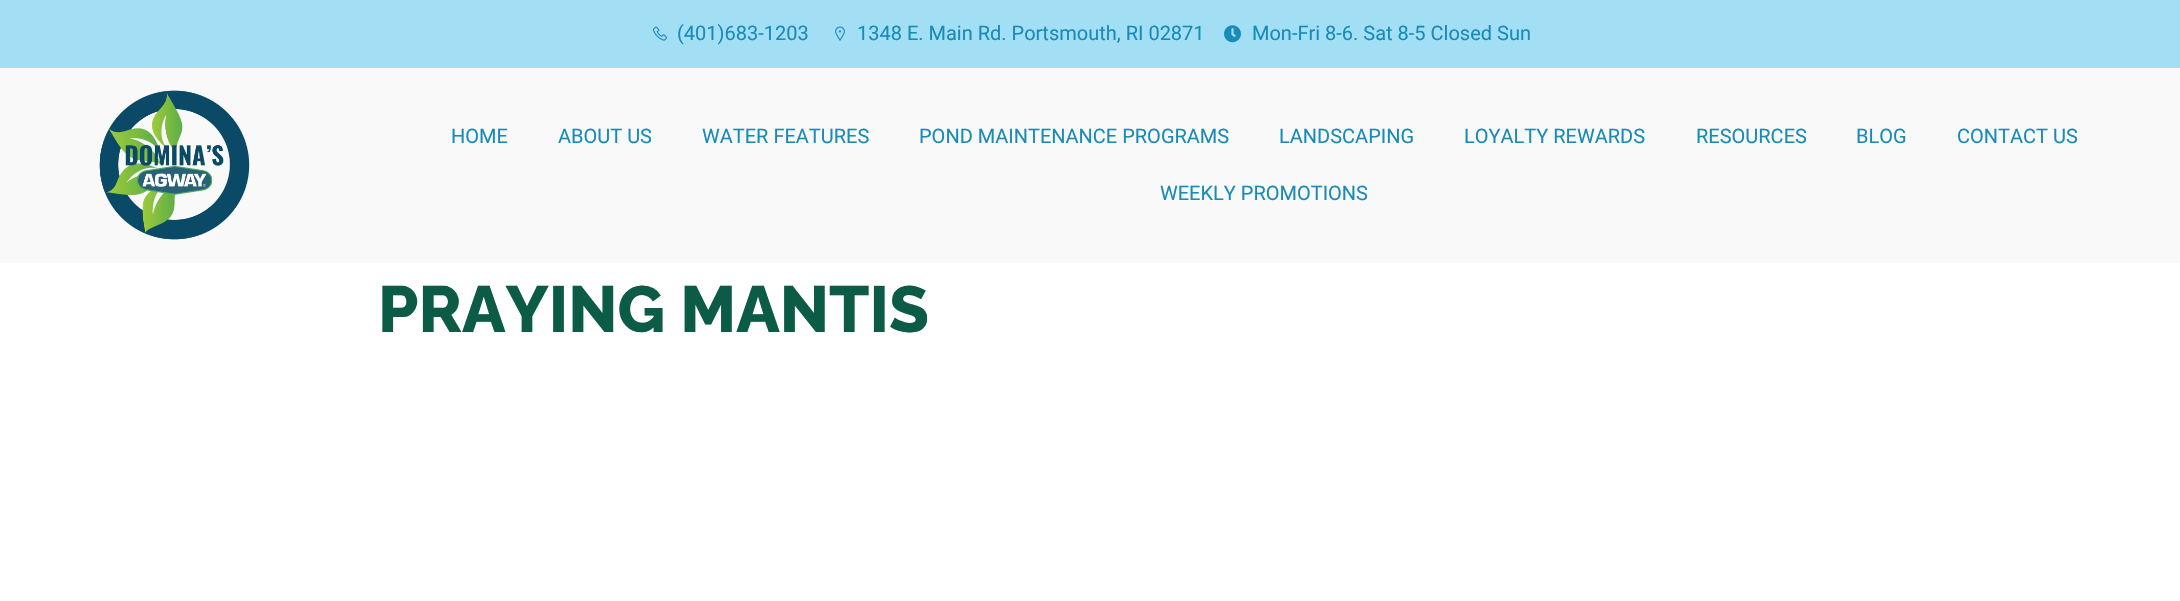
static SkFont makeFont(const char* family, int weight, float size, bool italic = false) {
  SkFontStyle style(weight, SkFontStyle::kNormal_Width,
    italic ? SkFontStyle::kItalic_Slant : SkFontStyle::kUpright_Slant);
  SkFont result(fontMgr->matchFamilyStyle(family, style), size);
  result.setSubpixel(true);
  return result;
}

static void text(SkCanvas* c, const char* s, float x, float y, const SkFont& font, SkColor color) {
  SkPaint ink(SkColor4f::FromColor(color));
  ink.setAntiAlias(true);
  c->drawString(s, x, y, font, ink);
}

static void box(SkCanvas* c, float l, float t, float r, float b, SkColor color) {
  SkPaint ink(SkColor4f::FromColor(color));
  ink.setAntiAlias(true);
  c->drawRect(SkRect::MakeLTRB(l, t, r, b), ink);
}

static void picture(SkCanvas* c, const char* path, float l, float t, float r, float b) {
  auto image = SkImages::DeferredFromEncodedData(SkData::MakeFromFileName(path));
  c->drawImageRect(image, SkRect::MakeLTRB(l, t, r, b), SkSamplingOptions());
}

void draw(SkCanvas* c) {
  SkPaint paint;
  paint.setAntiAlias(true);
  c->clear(0xffffffff);
  box(c, 0, 0, 2180, 68, 0xffa2dff5);
  picture(c, "img_01.png", 652, 26, 668, 41);
  SkFont face1 = makeFont("Roboto", 400, 20);
  text(c, "(401)683-1203", 677, 40, face1, 0xff188bb7);
  picture(c, "img_02.png", 835, 26, 845, 41);
  text(c, "1348 E. Main Rd. Portsmouth, RI 02871", 857, 40, face1, 0xff188bb7);
  picture(c, "img_03.png", 1224, 25, 1241, 43);
  text(c, "Mon-Fri 8-6. Sat 8-5 Closed Sun", 1252, 40, face1, 0xff188bb7);
  box(c, 0, 68, 2180, 263, 0xfff9f9f9);
  picture(c, "img_04.png", 99, 90, 250, 240);
  text(c, "HOME", 451, 143, face1, 0xff188bb7);
  text(c, "ABOUT US", 558, 143, face1, 0xff188bb7);
  text(c, "WATER FEATURES", 702, 143, face1, 0xff188bb7);
  text(c, "POND MAINTENANCE PROGRAMS", 919, 143, face1, 0xff188bb7);
  text(c, "LANDSCAPING", 1279, 143, face1, 0xff188bb7);
  text(c, "LOYALTY REWARDS", 1464, 143, face1, 0xff188bb7);
  text(c, "RESOURCES", 1696, 143, face1, 0xff188bb7);
  text(c, "BLOG", 1856, 143, face1, 0xff188bb7);
  text(c, "CONTACT US", 1957, 143, face1, 0xff188bb7);
  text(c, "WEEKLY PROMOTIONS", 1160, 200, face1, 0xff188bb7);
  SkFont face2 = makeFont("Raleway", 800, 65);
  text(c, "PRAYING MANTIS", 378, 332, face2, 0xff0c5b47);
}
